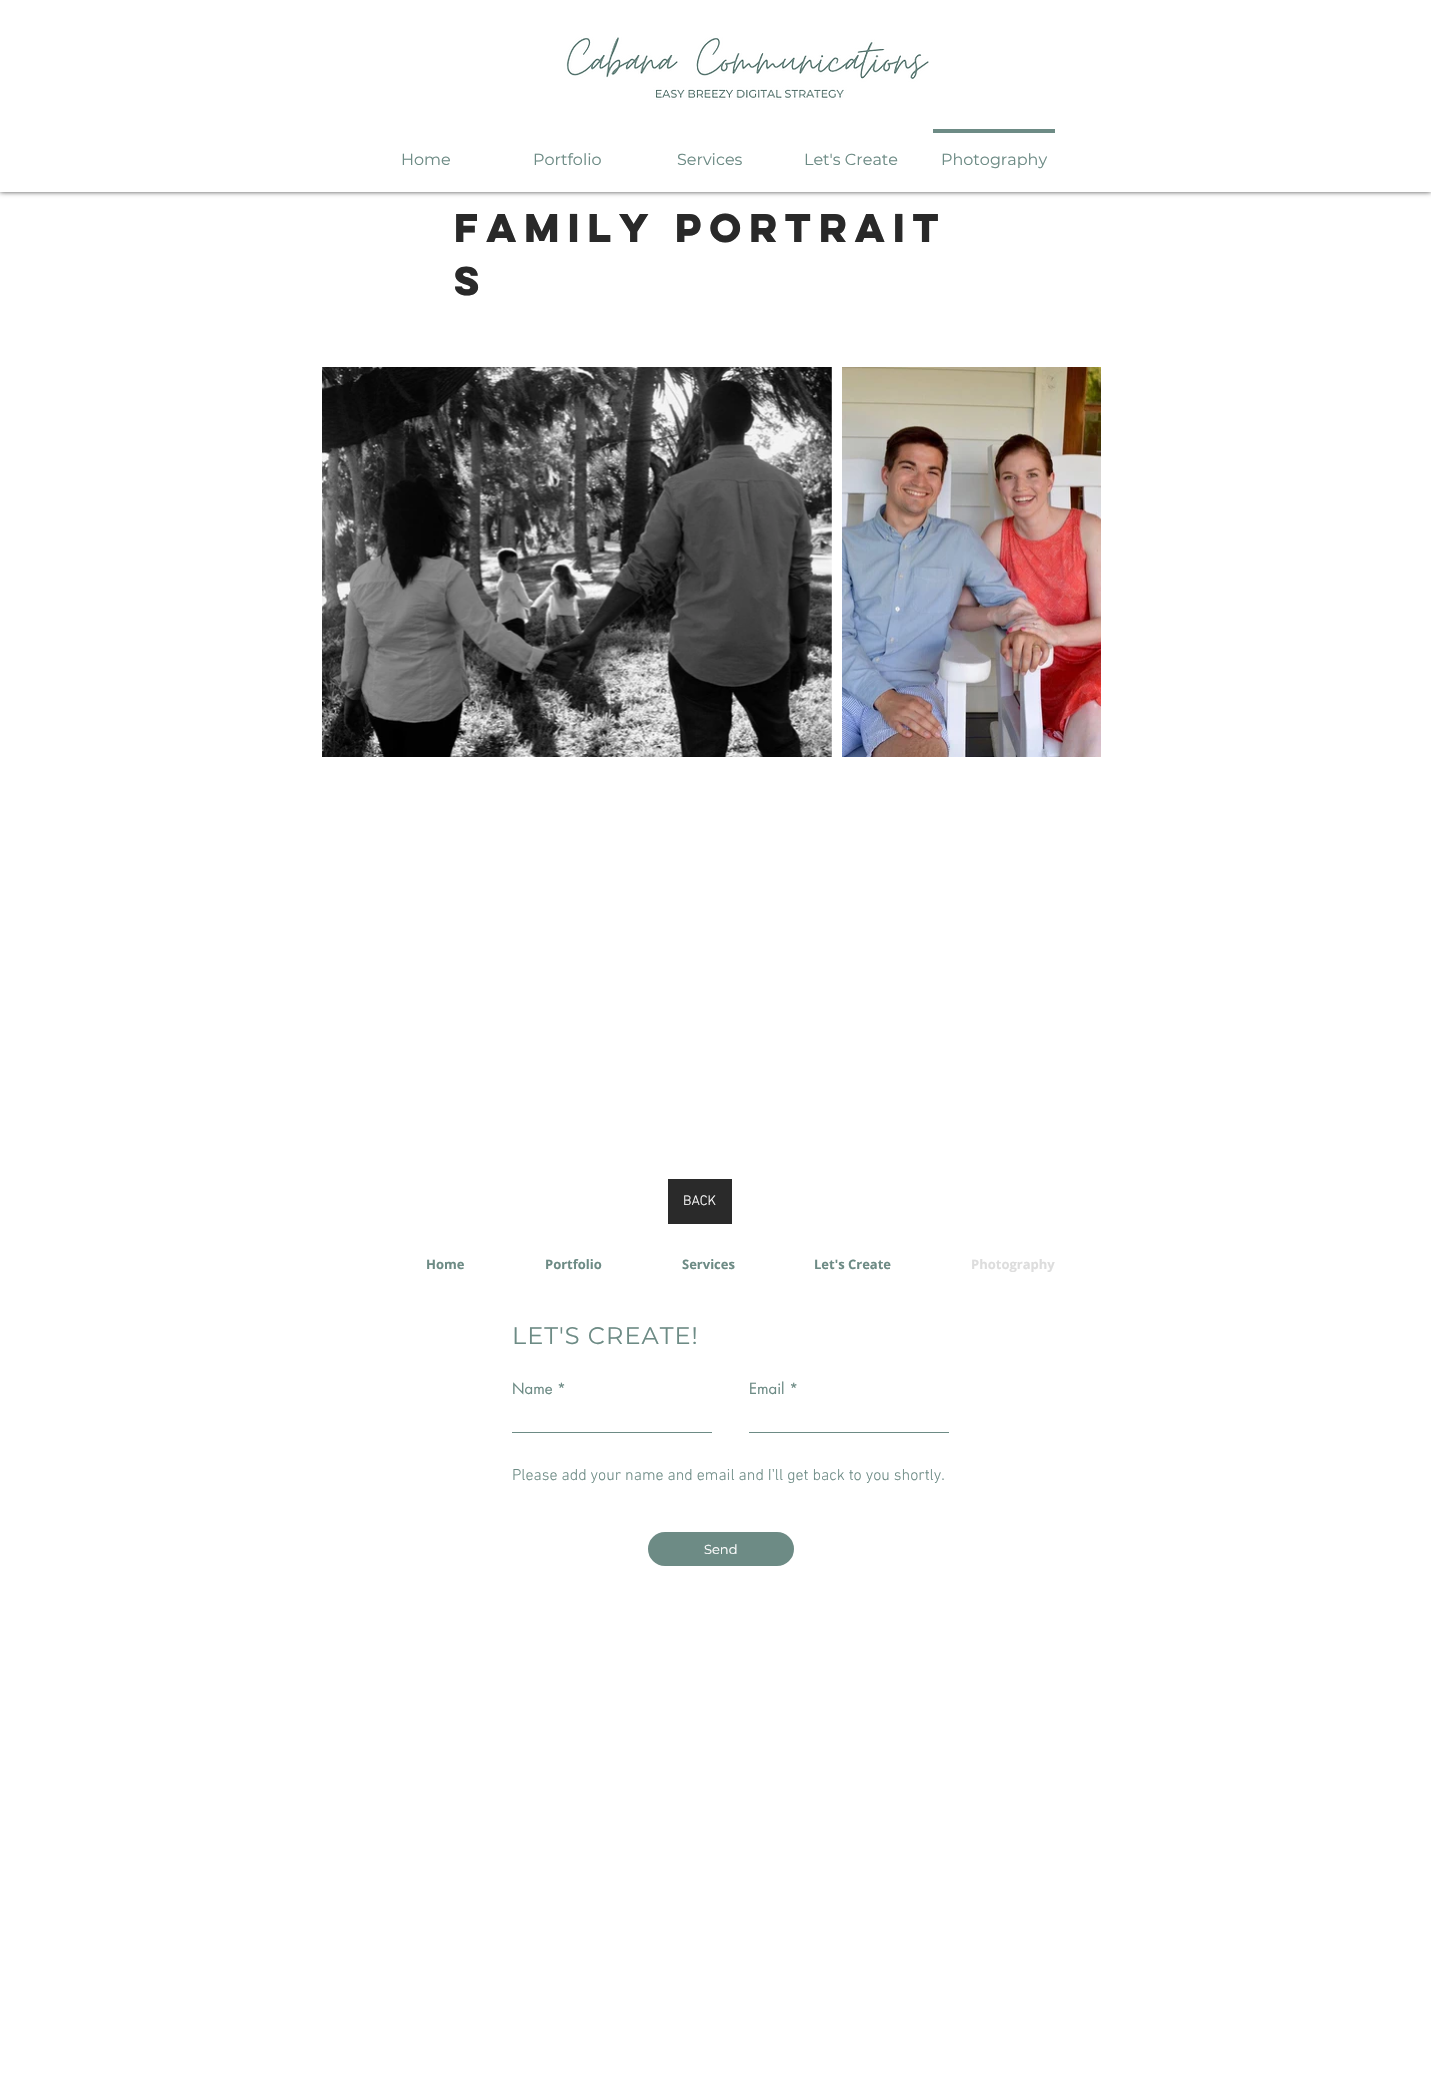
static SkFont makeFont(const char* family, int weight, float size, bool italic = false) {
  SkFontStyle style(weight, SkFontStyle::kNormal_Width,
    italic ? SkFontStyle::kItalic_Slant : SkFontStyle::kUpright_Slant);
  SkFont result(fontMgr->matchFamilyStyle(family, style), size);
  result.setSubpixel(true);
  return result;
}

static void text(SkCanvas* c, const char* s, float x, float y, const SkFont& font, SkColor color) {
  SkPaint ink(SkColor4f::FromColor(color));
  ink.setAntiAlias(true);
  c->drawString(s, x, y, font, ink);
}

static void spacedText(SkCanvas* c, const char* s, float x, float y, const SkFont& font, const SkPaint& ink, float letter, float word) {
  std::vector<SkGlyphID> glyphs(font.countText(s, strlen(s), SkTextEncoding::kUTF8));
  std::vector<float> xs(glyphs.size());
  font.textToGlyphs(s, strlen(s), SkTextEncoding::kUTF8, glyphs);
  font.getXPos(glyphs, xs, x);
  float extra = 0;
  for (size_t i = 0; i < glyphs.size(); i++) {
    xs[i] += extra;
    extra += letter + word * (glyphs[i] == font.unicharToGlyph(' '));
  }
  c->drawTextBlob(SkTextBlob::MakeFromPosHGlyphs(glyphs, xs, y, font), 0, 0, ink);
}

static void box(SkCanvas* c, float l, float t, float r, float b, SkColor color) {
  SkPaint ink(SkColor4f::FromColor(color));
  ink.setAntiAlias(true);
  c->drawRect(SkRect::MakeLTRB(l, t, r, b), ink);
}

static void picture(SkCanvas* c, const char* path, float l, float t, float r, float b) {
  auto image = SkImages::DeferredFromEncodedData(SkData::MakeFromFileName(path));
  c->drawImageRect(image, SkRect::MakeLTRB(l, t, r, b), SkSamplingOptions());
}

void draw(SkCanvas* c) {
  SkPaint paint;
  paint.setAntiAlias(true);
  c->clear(0xffffffff);
  paint.setColor(0xb3000000);
  paint.setMaskFilter(SkMaskFilter::MakeBlur(kNormal_SkBlurStyle, 2.5f));
  c->drawRect(SkRect::MakeLTRB(0, 0, 1431, 192), paint);
  paint.setMaskFilter(nullptr);
  box(c, 0, 0, 1431, 192, 0xffffffff);
  picture(c, "img_01.png", 555, 37, 929, 100);
  SkFont face1 = makeFont("Montserrat", 400, 16);
  text(c, "Home", 401, 165, face1, 0xff6d8b85);
  text(c, "Portfolio", 533, 165, face1, 0xff6d8b85);
  text(c, "Services", 677, 165, face1, 0xff6d8b85);
  text(c, "Let's Create", 804, 165, face1, 0xff6d8b85);
  box(c, 933, 129, 1055, 133, 0xff6d8b85);
  text(c, "Photography", 941, 165, face1, 0xff6d8b85);
  SkFont face2 = makeFont("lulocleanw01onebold", 700, 36);
  text(c, "Family portrait", 454, 242, face2, 0xff292929);
  text(c, "s", 454, 295, face2, 0xff292929);
  picture(c, "img_02.png", 322, 367, 832, 757);
  picture(c, "img_03.png", 842, 367, 1101, 757);
  box(c, 668, 1179, 732, 1224, 0xff2a2a2a);
  SkFont face3 = makeFont("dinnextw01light", 300, 14);
  text(c, "BACK", 683, 1205, face3, 0xffffffff);
  SkFont face4 = makeFont("Open Sans", 700, 13);
  text(c, "Home", 426, 1269, face4, 0xff6d8b85);
  text(c, "Portfolio", 545, 1269, face4, 0xff6d8b85);
  text(c, "Services", 682, 1269, face4, 0xff6d8b85);
  text(c, "Let's Create", 814, 1269, face4, 0xff6d8b85);
  text(c, "Photography", 971, 1269, face4, 0xffdddddd);
  SkFont face5 = makeFont("Montserrat", 400, 24);
  paint.setColor(0xff6d8b85);
  spacedText(c, "LET'S CREATE!", 512, 1344, face5, paint, 1, 0);
  SkFont face6 = makeFont("futura", 400, 15);
  text(c, "Name *", 512, 1394, face6, 0xff6d8b85);
  box(c, 512, 1432, 712, 1433, 0xff6d8b85);
  text(c, "Email *", 749, 1394, face6, 0xff6d8b85);
  box(c, 749, 1432, 949, 1433, 0xff6d8b85);
  SkFont face7 = makeFont("dinnextw01light", 300, 16);
  text(c, "Please add your name and email and I'll get back to you shortly.", 512, 1480, face7, 0xff6d8b85);
  c->drawRoundRect(SkRect::MakeLTRB(649, 1533, 793, 1565), 16, 16, paint);
  paint.setStyle(SkPaint::kStroke_Style);
  paint.setStrokeWidth(2);
  c->drawRoundRect(SkRect::MakeLTRB(649, 1533, 793, 1565), 16, 16, paint);
  SkFont face8 = makeFont("Montserrat", 400, 13);
  text(c, "Send", 704, 1554, face8, 0xffffffff);
}
